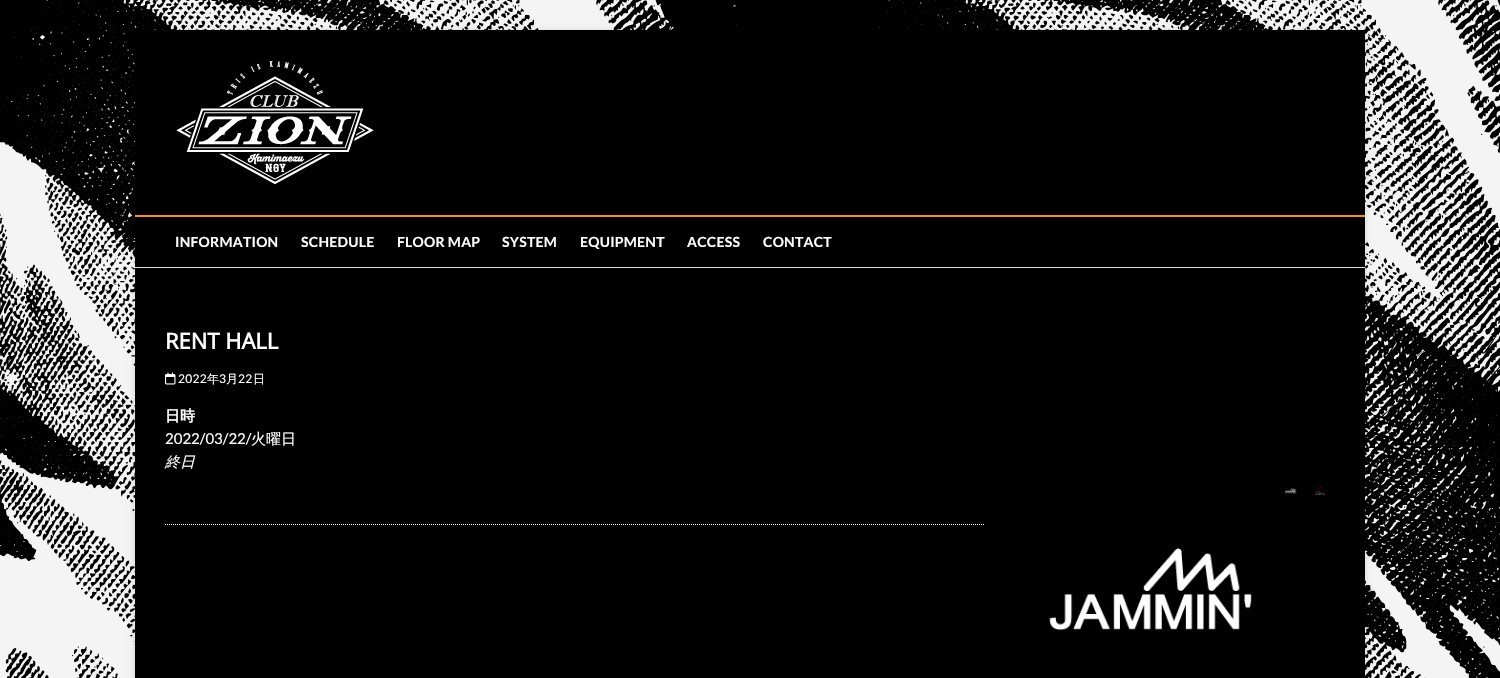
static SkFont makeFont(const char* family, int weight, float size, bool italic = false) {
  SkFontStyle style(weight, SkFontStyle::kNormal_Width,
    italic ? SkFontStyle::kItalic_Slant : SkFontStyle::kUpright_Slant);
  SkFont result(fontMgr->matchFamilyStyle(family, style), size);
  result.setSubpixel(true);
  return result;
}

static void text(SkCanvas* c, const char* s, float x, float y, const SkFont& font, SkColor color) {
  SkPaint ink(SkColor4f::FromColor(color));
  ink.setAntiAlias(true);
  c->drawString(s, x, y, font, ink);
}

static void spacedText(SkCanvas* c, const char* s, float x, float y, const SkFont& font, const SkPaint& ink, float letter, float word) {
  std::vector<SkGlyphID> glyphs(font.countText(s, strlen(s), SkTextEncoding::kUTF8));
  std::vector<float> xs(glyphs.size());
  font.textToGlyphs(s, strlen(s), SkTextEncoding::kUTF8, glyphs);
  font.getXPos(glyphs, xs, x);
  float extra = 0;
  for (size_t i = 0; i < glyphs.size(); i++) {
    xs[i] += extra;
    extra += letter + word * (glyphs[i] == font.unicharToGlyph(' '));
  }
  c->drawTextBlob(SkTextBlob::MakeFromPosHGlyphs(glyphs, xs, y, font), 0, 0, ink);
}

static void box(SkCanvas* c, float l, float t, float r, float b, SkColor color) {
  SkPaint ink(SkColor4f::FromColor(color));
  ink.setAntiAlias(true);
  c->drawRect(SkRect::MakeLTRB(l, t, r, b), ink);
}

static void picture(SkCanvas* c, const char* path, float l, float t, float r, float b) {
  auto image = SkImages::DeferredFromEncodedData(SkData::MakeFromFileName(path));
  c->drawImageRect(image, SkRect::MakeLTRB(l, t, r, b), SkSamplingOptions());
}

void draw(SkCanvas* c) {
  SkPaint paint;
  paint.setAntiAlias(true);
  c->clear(0xfff4f4f4);
  picture(c, "img_01.png", 0, 0, 1500, 678);
  paint.setColor(0x26000000);
  paint.setMaskFilter(SkMaskFilter::MakeBlur(kNormal_SkBlurStyle, 3));
  c->drawRect(SkRect::MakeLTRB(135, 31, 1365, 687), paint);
  paint.setMaskFilter(nullptr);
  box(c, 135, 30, 1365, 678, 0xff000000);
  picture(c, "img_02.png", 176, 61, 374, 184);
  box(c, 135, 215, 1365, 217, 0xfffc9700);
  box(c, 135, 267, 1365, 268, 0xffdddddd);
  SkFont face1 = makeFont("Lato", 700, 14);
  paint.setColor(0xffffffff);
  spacedText(c, "INFORMATION", 175, 247, face1, paint, 0.25f, 0);
  spacedText(c, "SCHEDULE", 301, 247, face1, paint, 0.25f, 0);
  spacedText(c, "FLOOR MAP", 397, 247, face1, paint, 0.25f, 0);
  spacedText(c, "SYSTEM", 502, 247, face1, paint, 0.25f, 0);
  spacedText(c, "EQUIPMENT", 580, 247, face1, paint, 0.25f, 0);
  spacedText(c, "ACCESS", 687, 247, face1, paint, 0.25f, 0);
  spacedText(c, "CONTACT", 763, 247, face1, paint, 0.25f, 0);
  SkFont face2 = makeFont("Open Sans", 700, 22);
  text(c, "RENT HALL", 165, 349, face2, 0xffffffff);
  picture(c, "img_03.png", 165, 372, 176, 385);
  SkFont face3 = makeFont("Lato", 400, 12);
  spacedText(c, "2022", 178, 383, face3, paint, 0.25f, 0);
  SkFont face4 = makeFont("WenQuanYi Zen Hei", 500, 12);
  spacedText(c, "年", 207, 383, face4, paint, 0.25f, 0);
  spacedText(c, "3", 219, 383, face3, paint, 0.25f, 0);
  spacedText(c, "月", 226, 383, face4, paint, 0.25f, 0);
  spacedText(c, "22", 238, 383, face3, paint, 0.25f, 0);
  spacedText(c, "日", 253, 383, face4, paint, 0.25f, 0);
  SkFont face5 = makeFont("WenQuanYi Zen Hei", 700, 15);
  text(c, "日時", 165, 421, face5, 0xffffffff);
  SkFont face6 = makeFont("Lato", 400, 15);
  text(c, "2022/03/22/", 165, 444, face6, 0xffffffff);
  SkFont face7 = makeFont("WenQuanYi Zen Hei", 500, 15);
  text(c, "火曜日", 251, 444, face7, 0xffffffff);
  SkFont face8 = makeFont("WenQuanYi Zen Hei", 500, 15, true);
  text(c, "終日", 165, 467, face8, 0xffffffff);
  paint.setStyle(SkPaint::kStroke_Style);
  paint.setStrokeWidth(1);
  paint.setPathEffect(SkDashPathEffect::Make({{1, 1}}, 0));
  c->drawPath(SkPathBuilder().moveTo(165, 524.5f).lineTo(984, 524.5f).detach(), paint);
  paint.setPathEffect(nullptr);
  picture(c, "img_04.png", 1284, 488, 1297, 494);
  picture(c, "img_05.png", 1315, 487, 1325, 495);
  picture(c, "img_06.png", 1049, 548, 1252, 631);
}
